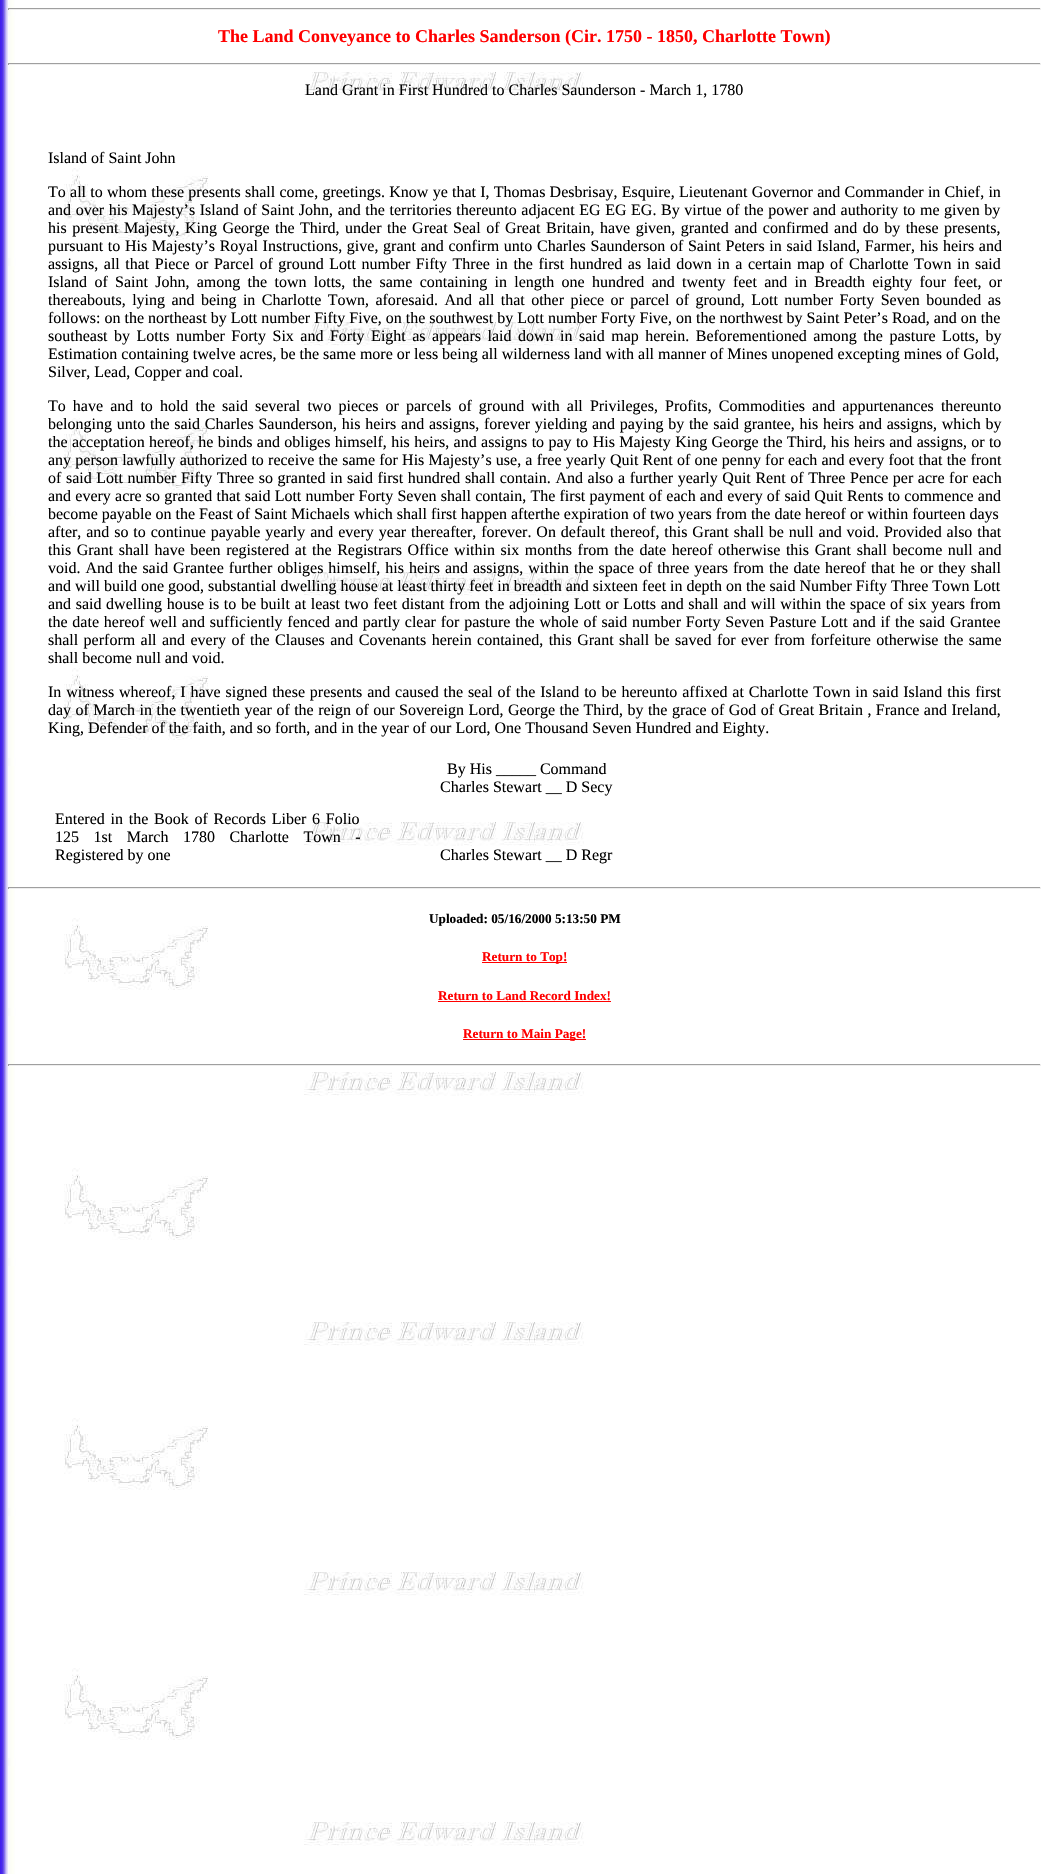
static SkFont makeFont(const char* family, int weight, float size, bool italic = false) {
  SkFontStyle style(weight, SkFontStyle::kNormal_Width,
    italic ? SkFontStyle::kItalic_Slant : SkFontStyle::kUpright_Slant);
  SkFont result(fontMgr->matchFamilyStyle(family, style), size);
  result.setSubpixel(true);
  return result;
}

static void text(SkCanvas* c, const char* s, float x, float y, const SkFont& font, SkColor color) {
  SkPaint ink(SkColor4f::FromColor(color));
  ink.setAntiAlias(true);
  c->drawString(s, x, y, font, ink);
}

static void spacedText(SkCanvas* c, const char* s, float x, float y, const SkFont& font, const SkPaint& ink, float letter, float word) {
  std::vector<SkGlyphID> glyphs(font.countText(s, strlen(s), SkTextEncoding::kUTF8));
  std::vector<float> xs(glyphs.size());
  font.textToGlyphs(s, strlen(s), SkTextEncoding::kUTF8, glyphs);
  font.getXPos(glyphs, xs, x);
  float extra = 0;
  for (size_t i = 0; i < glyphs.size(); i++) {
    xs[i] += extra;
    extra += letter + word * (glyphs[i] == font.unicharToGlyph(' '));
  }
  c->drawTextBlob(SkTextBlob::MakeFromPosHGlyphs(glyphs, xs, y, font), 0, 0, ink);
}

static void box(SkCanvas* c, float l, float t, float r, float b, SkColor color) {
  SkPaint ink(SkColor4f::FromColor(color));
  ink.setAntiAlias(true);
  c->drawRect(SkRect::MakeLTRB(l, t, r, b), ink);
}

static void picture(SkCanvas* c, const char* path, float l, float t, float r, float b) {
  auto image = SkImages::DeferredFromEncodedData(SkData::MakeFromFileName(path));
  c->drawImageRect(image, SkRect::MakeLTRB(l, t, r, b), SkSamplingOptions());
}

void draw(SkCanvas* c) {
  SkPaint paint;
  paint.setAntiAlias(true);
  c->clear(0xffffffff);
  picture(c, "img_01.png", 0, 0, 584, 1874);
  box(c, 8, 8, 1041, 9, 0xff9f9f9f);
  box(c, 1040, 8, 1041, 10, 0xffeeeeee);
  box(c, 8, 9, 1041, 10, 0xffeeeeee);
  box(c, 8, 8, 9, 10, 0xff9f9f9f);
  SkFont face1 = makeFont("Liberation Serif", 700, 18);
  text(c, "The Land Conveyance to Charles Sanderson (Cir. 1750 - 1850, Charlotte Town)", 218, 42, face1, 0xffff0000);
  box(c, 8, 63, 1041, 64, 0xff9f9f9f);
  box(c, 1040, 63, 1041, 65, 0xffeeeeee);
  box(c, 8, 64, 1041, 65, 0xffeeeeee);
  box(c, 8, 63, 9, 65, 0xff9f9f9f);
  SkFont face2 = makeFont("Liberation Serif", 400, 16);
  text(c, "Land Grant in First Hundred to Charles Saunderson - March 1, 1780", 305, 95, face2, 0xff000000);
  text(c, "Island of Saint John", 48, 163, face2, 0xff000000);
  paint.setColor(0xff000000);
  spacedText(c, "To all to whom these presents shall come, greetings. Know ye that I, Thomas Desbrisay, Esquire, Lieutenant Governor and Commander in Chief, in", 48, 197, face2, paint, 0, 0.25f);
  spacedText(c, "and over his Majesty’s Island of Saint John, and the territories thereunto adjacent EG EG EG. By virtue of the power and authority to me given by", 48, 215, face2, paint, 0, 0.6f);
  spacedText(c, "his present Majesty, King George the Third, under the Great Seal of Great Britain, have given, granted and confirmed and do by these presents,", 48, 233, face2, paint, 0, 1.5f);
  spacedText(c, "pursuant to His Majesty’s Royal Instructions, give, grant and confirm unto Charles Saunderson of Saint Peters in said Island, Farmer, his heirs and", 48, 251, face2, paint, 0, 0.7f);
  spacedText(c, "assigns, all that Piece or Parcel of ground Lott number Fifty Three in the first hundred as laid down in a certain map of Charlotte Town in said", 48, 269, face2, paint, 0, 1.55f);
  spacedText(c, "Island of Saint John, among the town lotts, the same containing in length one hundred and twenty feet and in Breadth eighty four feet, or", 48, 287, face2, paint, 0, 3.3f);
  spacedText(c, "thereabouts, lying and being in Charlotte Town, aforesaid. And all that other piece or parcel of ground, Lott number Forty Seven bounded as", 48, 305, face2, paint, 0, 2.4f);
  text(c, "follows: on the northeast by Lott number Fifty Five, on the southwest by Lott number Forty Five, on the northwest by Saint Peter’s Road, and on the", 48, 323, face2, 0xff000000);
  spacedText(c, "southeast by Lotts number Forty Six and Forty Eight as appears laid down in said map herein. Beforementioned among the pasture Lotts, by", 48, 341, face2, paint, 0, 2.5f);
  text(c, "Estimation containing twelve acres, be the same more or less being all wilderness land with all manner of Mines unopened excepting mines of Gold,", 48, 359, face2, 0xff000000);
  text(c, "Silver, Lead, Copper and coal.", 48, 377, face2, 0xff000000);
  spacedText(c, "To have and to hold the said several two pieces or parcels of ground with all Privileges, Profits, Commodities and appurtenances thereunto", 48, 411, face2, paint, 0, 3.1f);
  spacedText(c, "belonging unto the said Charles Saunderson, his heirs and assigns, forever yielding and paying by the said grantee, his heirs and assigns, which by", 48, 429, face2, paint, 0, 0.75f);
  spacedText(c, "the acceptation hereof, he binds and obliges himself, his heirs, and assigns to pay to His Majesty King George the Third, his heirs and assigns, or to", 48, 447, face2, paint, 0, 0.35f);
  spacedText(c, "any person lawfully authorized to receive the same for His Majesty’s use, a free yearly Quit Rent of one penny for each and every foot that the front", 48, 465, face2, paint, 0, 0.2f);
  spacedText(c, "of said Lott number Fifty Three so granted in said first hundred shall contain. And also a further yearly Quit Rent of Three Pence per acre for each", 48, 483, face2, paint, 0, 0.6f);
  spacedText(c, "and every acre so granted that said Lott number Forty Seven shall contain, The first payment of each and every of said Quit Rents to commence and", 48, 501, face2, paint, 0, 0.2f);
  text(c, "become payable on the Feast of Saint Michaels which shall first happen afterthe expiration of two years from the date hereof or within fourteen days", 48, 519, face2, 0xff000000);
  spacedText(c, "after, and so to continue payable yearly and every year thereafter, forever. On default thereof, this Grant shall be null and void. Provided also that", 48, 537, face2, paint, 0, 0.9f);
  spacedText(c, "this Grant shall have been registered at the Registrars Office within six months from the date hereof otherwise this Grant shall become null and", 48, 555, face2, paint, 0, 1.6f);
  spacedText(c, "void. And the said Grantee further obliges himself, his heirs and assigns, within the space of three years from the date hereof that he or they shall", 48, 573, face2, paint, 0, 0.95f);
  text(c, "and will build one good, substantial dwelling house at least thirty feet in breadth and sixteen feet in depth on the said Number Fifty Three Town Lott", 48, 591, face2, 0xff000000);
  spacedText(c, "and said dwelling house is to be built at least two feet distant from the adjoining Lott or Lotts and shall and will within the space of six years from", 48, 609, face2, paint, 0, 0.6f);
  spacedText(c, "the date hereof well and sufficiently fenced and partly clear for pasture the whole of said number Forty Seven Pasture Lott and if the said Grantee", 48, 627, face2, paint, 0, 0.8f);
  spacedText(c, "shall perform all and every of the Clauses and Covenants herein contained, this Grant shall be saved for ever from forfeiture otherwise the same", 48, 645, face2, paint, 0, 1.4f);
  text(c, "shall become null and void.", 48, 663, face2, 0xff000000);
  spacedText(c, "In witness whereof, I have signed these presents and caused the seal of the Island to be hereunto affixed at Charlotte Town in said Island this first", 48, 697, face2, paint, 0, 0.85f);
  spacedText(c, "day of March in the twentieth year of the reign of our Sovereign Lord, George the Third, by the grace of God of Great Britain , France and Ireland,", 48, 715, face2, paint, 0, 0.45f);
  text(c, "King, Defender of the faith, and so forth, and in the year of our Lord, One Thousand Seven Hundred and Eighty.", 48, 733, face2, 0xff000000);
  text(c, "By His _____ Command", 447, 774, face2, 0xff000000);
  text(c, "Charles Stewart __ D Secy", 440, 792, face2, 0xff000000);
  spacedText(c, "Entered in the Book of Records Liber 6 Folio", 55, 824, face2, paint, 0, 1.75f);
  spacedText(c, "125 1st March 1780 Charlotte Town -", 55, 842, face2, paint, 0, 10.5f);
  text(c, "Registered by one", 55, 860, face2, 0xff000000);
  text(c, "Charles Stewart __ D Regr", 440, 860, face2, 0xff000000);
  box(c, 8, 887, 1041, 888, 0xff9f9f9f);
  box(c, 1040, 887, 1041, 889, 0xffeeeeee);
  box(c, 8, 888, 1041, 889, 0xffeeeeee);
  box(c, 8, 887, 9, 889, 0xff9f9f9f);
  SkFont face3 = makeFont("Liberation Serif", 700, 13.25f);
  text(c, "Uploaded: 05/16/2000 5:13:50 PM", 429, 923, face3, 0xff000000);
  box(c, 482, 962, 567, 963, 0xffff0000);
  text(c, "Return to Top!", 482, 961, face3, 0xffff0000);
  text(c, "Return to Land Record Index!", 438, 1000, face3, 0xffff0000);
  box(c, 438, 1001, 611, 1002, 0xffff0000);
  box(c, 463, 1039, 586, 1040, 0xffff0000);
  text(c, "Return to Main Page!", 463, 1038, face3, 0xffff0000);
  box(c, 8, 1064, 1041, 1065, 0xff9f9f9f);
  box(c, 1040, 1064, 1041, 1066, 0xffeeeeee);
  box(c, 8, 1065, 1041, 1066, 0xffeeeeee);
  box(c, 8, 1064, 9, 1066, 0xff9f9f9f);
}
